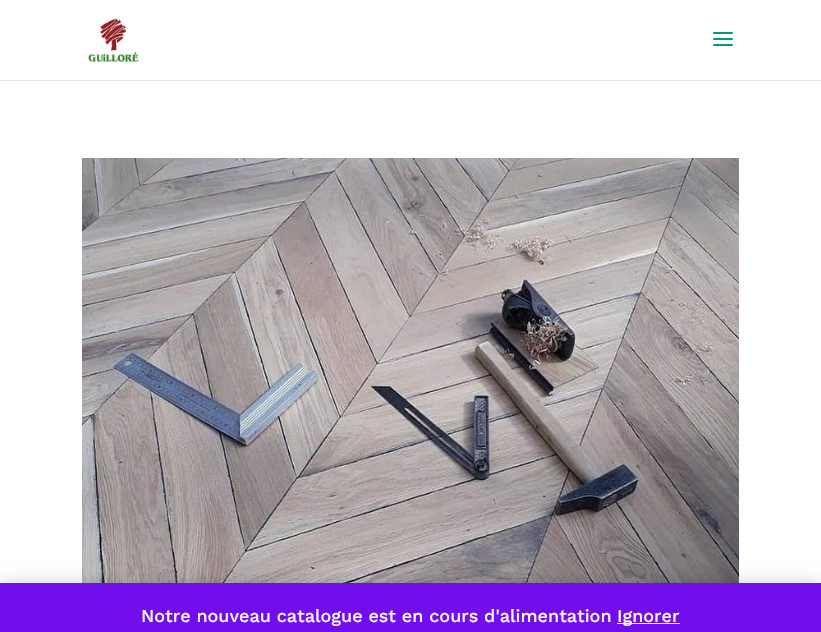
static SkFont makeFont(const char* family, int weight, float size, bool italic = false) {
  SkFontStyle style(weight, SkFontStyle::kNormal_Width,
    italic ? SkFontStyle::kItalic_Slant : SkFontStyle::kUpright_Slant);
  SkFont result(fontMgr->matchFamilyStyle(family, style), size);
  result.setSubpixel(true);
  return result;
}

static void text(SkCanvas* c, const char* s, float x, float y, const SkFont& font, SkColor color) {
  SkPaint ink(SkColor4f::FromColor(color));
  ink.setAntiAlias(true);
  c->drawString(s, x, y, font, ink);
}

static void box(SkCanvas* c, float l, float t, float r, float b, SkColor color) {
  SkPaint ink(SkColor4f::FromColor(color));
  ink.setAntiAlias(true);
  c->drawRect(SkRect::MakeLTRB(l, t, r, b), ink);
}

static void picture(SkCanvas* c, const char* path, float l, float t, float r, float b) {
  auto image = SkImages::DeferredFromEncodedData(SkData::MakeFromFileName(path));
  c->drawImageRect(image, SkRect::MakeLTRB(l, t, r, b), SkSamplingOptions());
}

void draw(SkCanvas* c) {
  SkPaint paint;
  paint.setAntiAlias(true);
  c->clear(0xffffffff);
  box(c, 0, 80, 821, 81, 0xffe6e6e6);
  picture(c, "img_01.png", 88, 18, 139, 62);
  picture(c, "img_02.png", 713, 32, 733, 46);
  picture(c, "img_03.png", 82, 158, 739, 583);
  paint.setColor(0x33000000);
  paint.setMaskFilter(SkMaskFilter::MakeBlur(kNormal_SkBlurStyle, 9));
  c->drawRect(SkRect::MakeLTRB(0, 584, 821, 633), paint);
  paint.setMaskFilter(nullptr);
  box(c, 0, 583, 821, 632, 0xff720eec);
  SkFont face1 = makeFont("Work Sans", 500, 18);
  text(c, "Notre nouveau catalogue est en cours d'alimentation", 141, 622, face1, 0xfffcfbfe);
  box(c, 617, 623, 680, 624, 0xfffcfbfe);
  text(c, "Ignorer", 617, 622, face1, 0xfffcfbfe);
}
